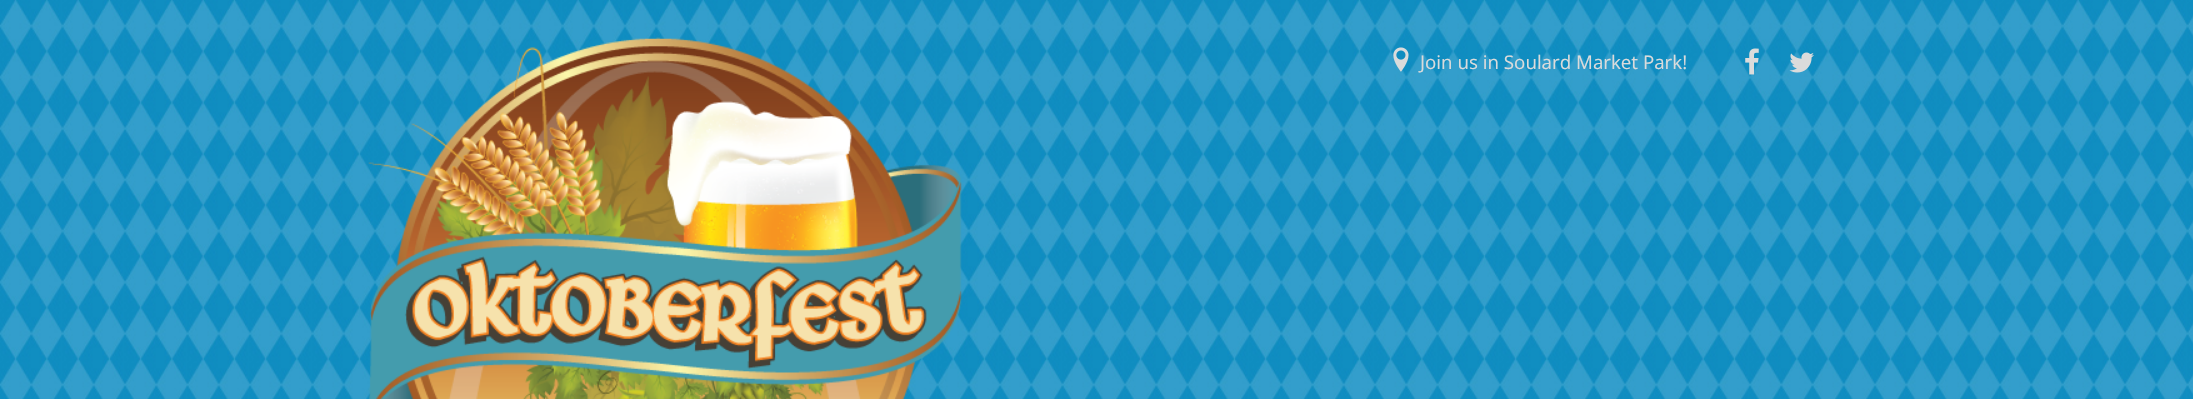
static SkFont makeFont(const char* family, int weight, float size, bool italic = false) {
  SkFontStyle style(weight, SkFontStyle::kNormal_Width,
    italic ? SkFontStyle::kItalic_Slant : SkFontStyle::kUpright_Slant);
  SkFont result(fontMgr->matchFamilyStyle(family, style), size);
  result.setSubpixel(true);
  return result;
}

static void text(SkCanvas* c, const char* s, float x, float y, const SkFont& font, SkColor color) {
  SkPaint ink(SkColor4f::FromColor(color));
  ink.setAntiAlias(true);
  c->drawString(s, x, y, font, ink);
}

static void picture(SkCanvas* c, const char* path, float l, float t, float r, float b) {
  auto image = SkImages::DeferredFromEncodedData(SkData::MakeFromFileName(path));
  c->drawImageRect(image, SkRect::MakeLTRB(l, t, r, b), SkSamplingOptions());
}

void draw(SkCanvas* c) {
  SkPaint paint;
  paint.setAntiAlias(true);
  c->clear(0xffffffff);
  picture(c, "img_01.png", 0, 0, 2193, 399);
  picture(c, "img_02.png", 368, 37, 962, 399);
  picture(c, "img_03.png", 1393, 47, 1409, 72);
  SkFont face1 = makeFont("Open Sans", 400, 18.75f);
  text(c, "Join us in Soulard Market Park!", 1420, 69, face1, 0xffdbdbdb);
  picture(c, "img_04.png", 1745, 48, 1759, 75);
  picture(c, "img_05.png", 1789, 52, 1814, 73);
}
